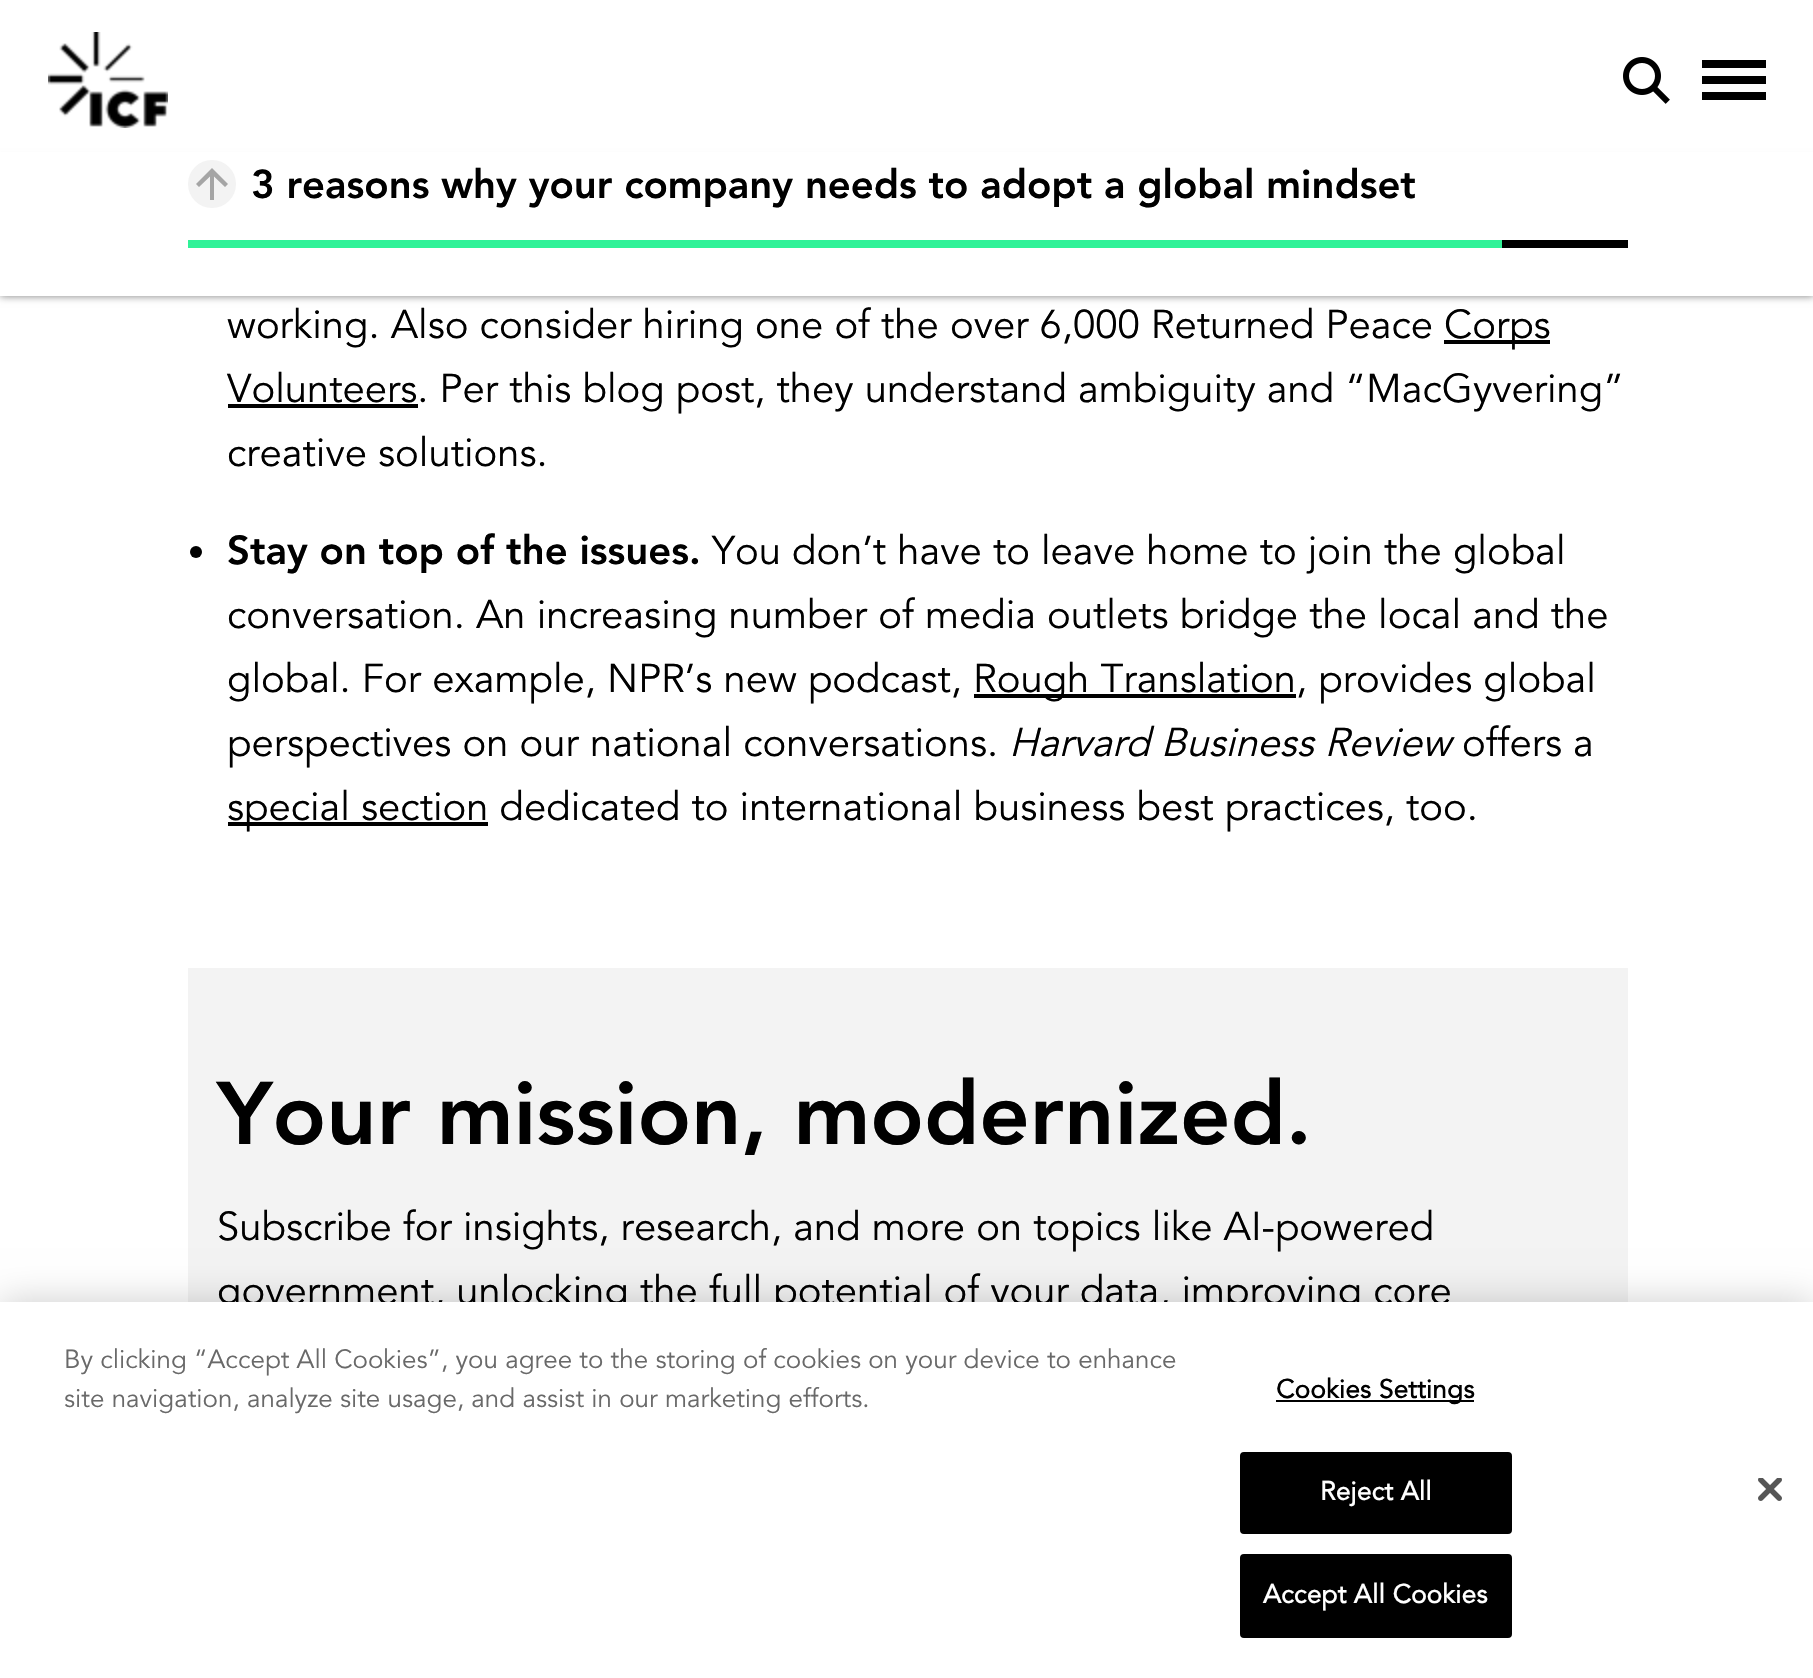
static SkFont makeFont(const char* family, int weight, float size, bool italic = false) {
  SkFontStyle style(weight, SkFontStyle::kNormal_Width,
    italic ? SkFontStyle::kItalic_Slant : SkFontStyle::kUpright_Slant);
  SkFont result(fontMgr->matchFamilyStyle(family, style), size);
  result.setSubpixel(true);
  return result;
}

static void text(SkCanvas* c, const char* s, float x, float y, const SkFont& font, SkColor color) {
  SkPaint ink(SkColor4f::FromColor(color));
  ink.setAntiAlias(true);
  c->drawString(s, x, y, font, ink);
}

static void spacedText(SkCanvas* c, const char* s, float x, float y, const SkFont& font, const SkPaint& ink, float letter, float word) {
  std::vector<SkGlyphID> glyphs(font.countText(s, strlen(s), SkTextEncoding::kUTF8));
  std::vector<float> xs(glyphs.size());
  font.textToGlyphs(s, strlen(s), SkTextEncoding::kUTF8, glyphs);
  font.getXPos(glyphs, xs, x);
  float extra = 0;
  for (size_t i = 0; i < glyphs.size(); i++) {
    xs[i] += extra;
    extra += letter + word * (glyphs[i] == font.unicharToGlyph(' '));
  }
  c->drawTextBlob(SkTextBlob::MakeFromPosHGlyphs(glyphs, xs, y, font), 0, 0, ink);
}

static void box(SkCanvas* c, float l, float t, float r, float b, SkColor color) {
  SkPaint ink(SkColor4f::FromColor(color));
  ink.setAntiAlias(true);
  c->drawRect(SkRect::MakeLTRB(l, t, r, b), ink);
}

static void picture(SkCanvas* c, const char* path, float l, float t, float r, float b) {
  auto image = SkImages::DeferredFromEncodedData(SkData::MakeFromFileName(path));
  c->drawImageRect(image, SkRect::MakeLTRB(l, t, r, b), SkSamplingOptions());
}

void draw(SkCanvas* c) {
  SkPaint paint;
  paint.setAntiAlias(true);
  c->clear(0xffffffff);
  picture(c, "img_01.png", 48, 32, 168, 128);
  picture(c, "img_02.png", 1623, 57, 1670, 104);
  box(c, 1702, 60, 1766, 68, 0xff000000);
  box(c, 1702, 76, 1766, 84, 0xff000000);
  box(c, 1702, 92, 1766, 100, 0xff000000);
  paint.setColor(0x80000000);
  paint.setMaskFilter(SkMaskFilter::MakeBlur(kNormal_SkBlurStyle, 4));
  c->drawRect(SkRect::MakeLTRB(0, 160, 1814, 296), paint);
  paint.setMaskFilter(nullptr);
  box(c, 0, 152, 1813, 296, 0xffffffff);
  paint.setColor(0xfff3f3f3);
  c->drawCircle(212, 184, 24, paint);
  paint.setColor(0xffa5a5a5);
  c->drawPath(SkPathBuilder(SkPathFillType::kEvenOdd).moveTo(196, 184).lineTo(199, 187).lineTo(210, 176.5f).lineTo(210, 200).lineTo(214, 200).lineTo(214, 176.5f).lineTo(225, 187).lineTo(228, 184).lineTo(212, 168).close().detach(), paint);
  SkFont face1 = makeFont("Avenir", 900, 40);
  text(c, "3 reasons why your company needs to adopt a global mindset", 251, 198, face1, 0xff000000);
  box(c, 1502, 240, 1628, 248, 0xff000000);
  box(c, 188, 240, 1502, 248, 0xff30f298);
  SkFont face2 = makeFont("Avenir", 400, 40);
  text(c, "working. Also consider hiring one of the over 6,000 Returned Peace", 227, 338, face2, 0xff000000);
  box(c, 1444, 340, 1550, 344, 0xff000000);
  text(c, "Corps", 1444, 338, face2, 0xff000000);
  box(c, 228, 404, 418, 408, 0xff000000);
  text(c, "Volunteers. Per this blog post, they understand ambiguity and “MacGyvering”", 227, 402, face2, 0xff000000);
  text(c, "creative solutions.", 227, 466, face2, 0xff000000);
  paint.setColor(0xff000000);
  c->drawCircle(196, 552, 6, paint);
  text(c, "Stay on top of the issues.", 227, 564, face1, 0xff000000);
  text(c, "You don’t have to leave home to join the global", 712, 564, face2, 0xff000000);
  text(c, "conversation. An increasing number of media outlets bridge the local and the", 227, 628, face2, 0xff000000);
  text(c, "global. For example, NPR’s new podcast,", 227, 692, face2, 0xff000000);
  box(c, 974, 694, 1296, 698, 0xff000000);
  text(c, "Rough Translation, provides global", 973, 692, face2, 0xff000000);
  text(c, "perspectives on our national conversations.", 227, 756, face2, 0xff000000);
  SkFont face3 = makeFont("Avenir", 400, 40, true);
  text(c, "Harvard Business Review", 1009, 756, face3, 0xff000000);
  text(c, "offers a", 1462, 756, face2, 0xff000000);
  box(c, 228, 822, 488, 826, 0xff000000);
  text(c, "special section dedicated to international business best practices, too.", 227, 820, face2, 0xff000000);
  box(c, 188, 968, 1628, 1302, 0xfff3f3f3);
  SkFont face4 = makeFont("Avenir", 900, 88);
  text(c, "Your mission, modernized.", 217, 1144, face4, 0xff000000);
  text(c, "Subscribe for insights, research, and more on topics like AI-powered", 217, 1240, face2, 0xff000000);
  text(c, "government, unlocking the full potential of your data, improving core", 217, 1304, face2, 0xff000000);
  paint.setColor(0x33000000);
  paint.setMaskFilter(SkMaskFilter::MakeBlur(kNormal_SkBlurStyle, 18));
  c->drawRect(SkRect::MakeLTRB(0, 1302, 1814, 1678), paint);
  paint.setMaskFilter(nullptr);
  box(c, 0, 1302, 1813, 1678, 0xffffffff);
  SkFont face5 = makeFont("Avenir", 400, 26);
  text(c, "By clicking “Accept All Cookies”, you agree to the storing of cookies on your device to enhance", 64, 1368, face5, 0xff696969);
  text(c, "site navigation, analyze site usage, and assist in our marketing efforts.", 64, 1407, face5, 0xff696969);
  box(c, 1276, 1400, 1474, 1402, 0xff000000);
  SkFont face6 = makeFont("Avenir", 700, 26);
  paint.setColor(0xff000000);
  spacedText(c, "Cookies Settings", 1276, 1398, face6, paint, 0.25f, 0);
  c->drawRoundRect(SkRect::MakeLTRB(1241, 1453, 1511, 1533), 3, 3, paint);
  paint.setStyle(SkPaint::kStroke_Style);
  paint.setStrokeWidth(2);
  c->drawRoundRect(SkRect::MakeLTRB(1241, 1453, 1511, 1533), 3, 3, paint);
  paint.setStyle(SkPaint::kFill_Style);
  paint.setColor(0xffffffff);
  spacedText(c, "Reject All", 1320, 1500, face6, paint, 0.25f, 0);
  paint.setColor(0xff000000);
  c->drawRoundRect(SkRect::MakeLTRB(1241, 1555, 1511, 1637), 3, 3, paint);
  paint.setStyle(SkPaint::kStroke_Style);
  c->drawRoundRect(SkRect::MakeLTRB(1241, 1555, 1511, 1637), 3, 3, paint);
  paint.setStyle(SkPaint::kFill_Style);
  paint.setColor(0xffffffff);
  spacedText(c, "Accept All Cookies", 1263, 1603, face6, paint, 0.25f, 0);
  picture(c, "img_03.png", 1758, 1478, 1782, 1501);
}
